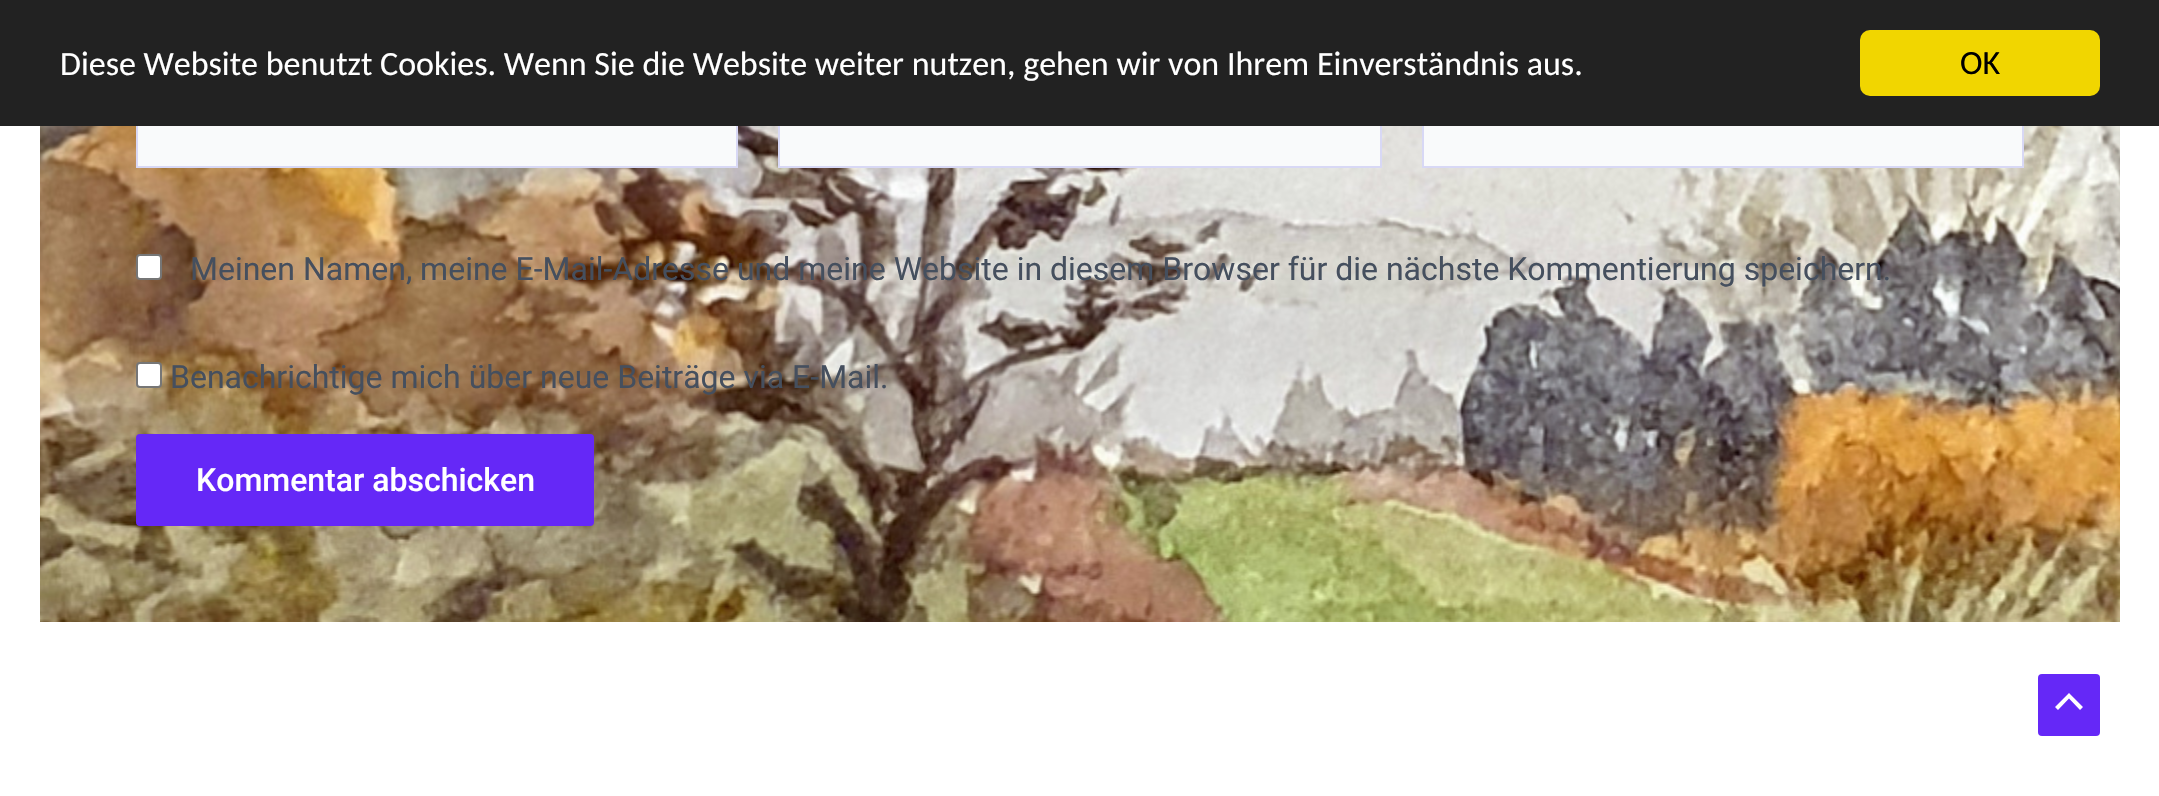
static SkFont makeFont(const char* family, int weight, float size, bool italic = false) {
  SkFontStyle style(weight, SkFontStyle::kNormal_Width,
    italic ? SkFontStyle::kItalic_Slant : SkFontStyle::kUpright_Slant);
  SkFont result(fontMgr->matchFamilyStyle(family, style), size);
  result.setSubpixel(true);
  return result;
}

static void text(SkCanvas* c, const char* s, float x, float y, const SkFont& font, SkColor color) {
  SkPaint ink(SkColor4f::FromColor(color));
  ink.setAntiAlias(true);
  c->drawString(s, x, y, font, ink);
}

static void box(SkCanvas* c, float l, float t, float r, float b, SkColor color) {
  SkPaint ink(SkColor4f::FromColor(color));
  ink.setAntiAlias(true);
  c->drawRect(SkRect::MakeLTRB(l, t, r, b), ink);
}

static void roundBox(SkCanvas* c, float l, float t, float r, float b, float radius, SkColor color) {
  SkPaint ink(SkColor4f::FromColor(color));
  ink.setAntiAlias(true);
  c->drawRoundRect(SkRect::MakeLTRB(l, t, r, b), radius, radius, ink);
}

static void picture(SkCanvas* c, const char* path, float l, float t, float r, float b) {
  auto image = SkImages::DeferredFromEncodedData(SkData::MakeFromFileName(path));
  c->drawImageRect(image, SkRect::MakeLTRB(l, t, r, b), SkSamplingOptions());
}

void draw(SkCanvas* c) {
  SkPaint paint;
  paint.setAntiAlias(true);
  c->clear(0xffffffff);
  picture(c, "img_01.png", 40, 126, 2120, 622);
  box(c, 138, 126, 736, 166, 0xfff9fafb);
  paint.setStyle(SkPaint::kStroke_Style);
  paint.setStrokeWidth(2);
  paint.setColor(0xffd8d8f5);
  c->drawRect(SkRect::MakeLTRB(137, 67, 737, 167), paint);
  box(c, 780, 126, 1380, 166, 0xfff9fafb);
  c->drawRect(SkRect::MakeLTRB(779, 67, 1381, 167), paint);
  box(c, 1424, 126, 2022, 166, 0xfff9fafb);
  c->drawRect(SkRect::MakeLTRB(1423, 67, 2023, 167), paint);
  box(c, 0, 0, 2159, 126, 0xff222222);
  SkFont face1 = makeFont("Carlito", 400, 34);
  text(c, "Diese Website benutzt Cookies. Wenn Sie die Website weiter nutzen, gehen wir von Ihrem Einverständnis aus.", 60, 75, face1, 0xffffffff);
  roundBox(c, 1860, 30, 2100, 96, 10, 0xfff1d600);
  text(c, "OK", 1960, 74, face1, 0xff000000);
  paint.setStyle(SkPaint::kFill_Style);
  paint.setColor(0xffffffff);
  c->drawRoundRect(SkRect::MakeLTRB(137, 255, 161, 279), 3, 3, paint);
  paint.setStyle(SkPaint::kStroke_Style);
  paint.setColor(0xff767676);
  c->drawRoundRect(SkRect::MakeLTRB(137, 255, 161, 279), 3, 3, paint);
  SkFont face2 = makeFont("Roboto", 400, 32);
  text(c, "Meinen Namen, meine E-Mail-Adresse und meine Website in diesem Browser für die nächste Kommentierung speichern.", 190, 280, face2, 0xff454f5e);
  paint.setStyle(SkPaint::kFill_Style);
  paint.setColor(0xffffffff);
  c->drawRoundRect(SkRect::MakeLTRB(137, 363, 161, 387), 3, 3, paint);
  paint.setStyle(SkPaint::kStroke_Style);
  paint.setColor(0xff767676);
  c->drawRoundRect(SkRect::MakeLTRB(137, 363, 161, 387), 3, 3, paint);
  text(c, "Benachrichtige mich über neue Beiträge via E-Mail.", 170, 388, face2, 0xff454f5e);
  roundBox(c, 136, 434, 594, 526, 4, 0xff6528f7);
  SkFont face3 = makeFont("Roboto", 500, 32);
  text(c, "Kommentar abschicken", 196, 491, face3, 0xffffffff);
  roundBox(c, 2038, 674, 2100, 736, 4, 0xff6528f7);
  paint.setStyle(SkPaint::kFill_Style);
  paint.setColor(0xffffffff);
  c->drawPath(SkPathBuilder().moveTo(2083, 707).lineTo(2069, 693).lineTo(2055, 707).lineTo(2058, 710).lineTo(2069, 698.5f).lineTo(2080, 710).close().detach(), paint);
}
